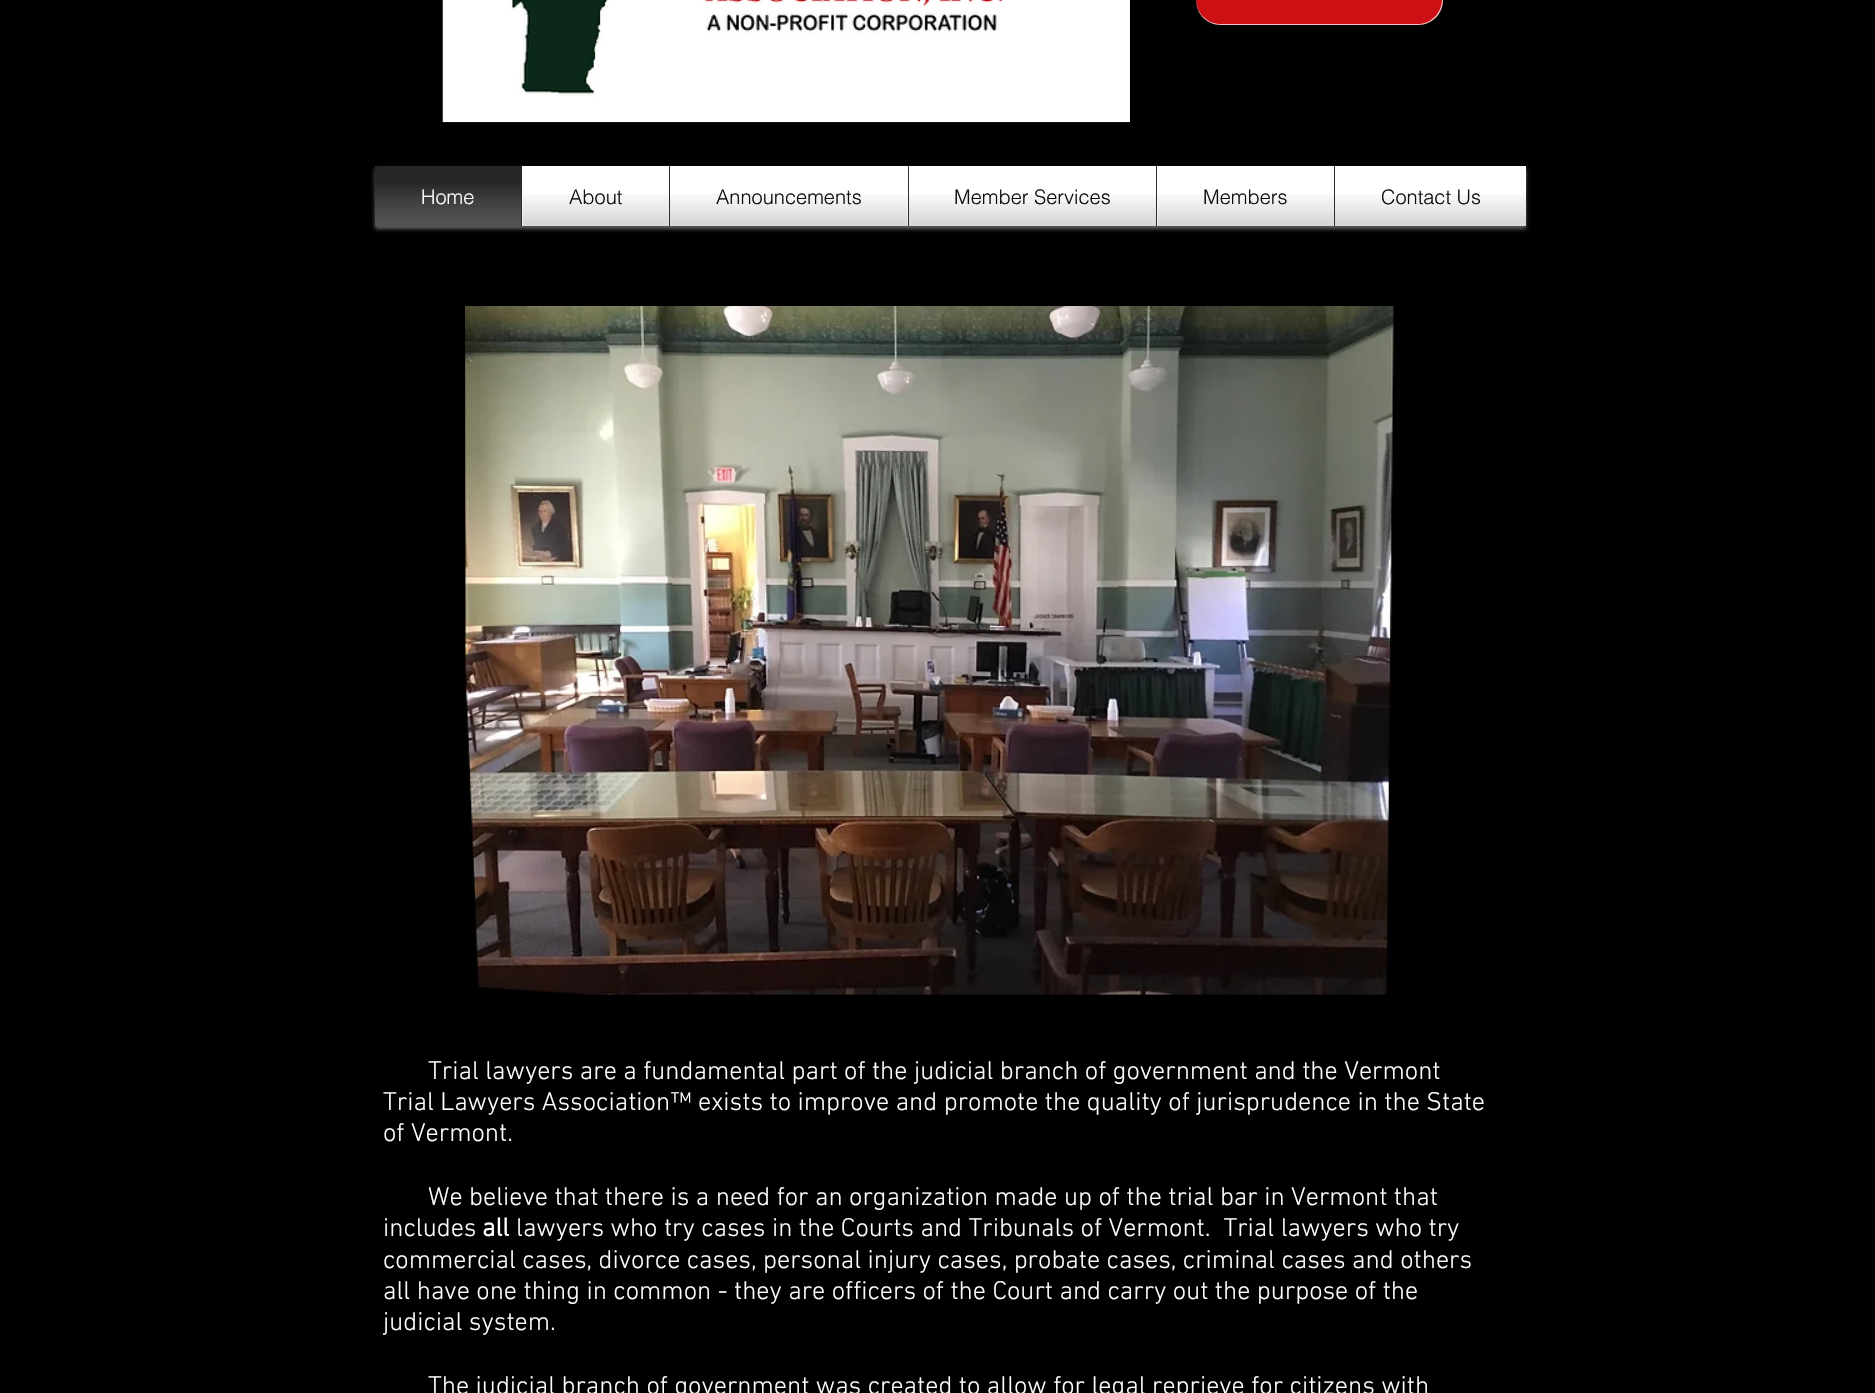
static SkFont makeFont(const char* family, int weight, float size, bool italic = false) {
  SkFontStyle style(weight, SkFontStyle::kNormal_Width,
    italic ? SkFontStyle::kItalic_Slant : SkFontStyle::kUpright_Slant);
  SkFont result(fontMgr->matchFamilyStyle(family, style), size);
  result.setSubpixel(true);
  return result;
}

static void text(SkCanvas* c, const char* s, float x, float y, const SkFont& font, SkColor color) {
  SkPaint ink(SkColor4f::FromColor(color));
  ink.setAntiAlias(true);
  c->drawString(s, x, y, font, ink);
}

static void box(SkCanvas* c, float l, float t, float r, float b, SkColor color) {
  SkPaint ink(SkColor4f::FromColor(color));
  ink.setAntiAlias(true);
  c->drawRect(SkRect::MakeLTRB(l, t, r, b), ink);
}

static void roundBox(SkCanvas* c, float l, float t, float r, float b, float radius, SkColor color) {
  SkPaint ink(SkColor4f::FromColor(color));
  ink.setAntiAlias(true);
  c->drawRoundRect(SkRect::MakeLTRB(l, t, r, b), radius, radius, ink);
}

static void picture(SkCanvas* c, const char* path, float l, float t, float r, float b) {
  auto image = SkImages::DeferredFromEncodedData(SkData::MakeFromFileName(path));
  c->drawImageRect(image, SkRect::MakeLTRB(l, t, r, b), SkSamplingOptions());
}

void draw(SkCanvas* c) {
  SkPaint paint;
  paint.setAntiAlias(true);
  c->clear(0xff000000);
  picture(c, "img_01.png", 442, 0, 1130, 123);
  roundBox(c, 1196, -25, 1443, 25, 25, 0xffcc1013);
  paint.setColor(0xbfffffff);
  c->drawPath(SkPathBuilder().moveTo(1196, -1).lineTo(1196, 0).cubicTo(1196, 14, 1207, 25, 1221, 25).lineTo(1418, 25).cubicTo(1432, 25, 1443, 14, 1443, 0).lineTo(1443, -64).cubicTo(1443, -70, 1441, -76, 1437, -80).cubicTo(1440, -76, 1442, -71, 1442, -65).lineTo(1442, -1).cubicTo(1442, 13, 1431, 24, 1418, 24).lineTo(1221, 24).cubicTo(1207, 24, 1196, 13, 1196, -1).close().detach(), paint);
  paint.setColor(0x99a29e9e);
  paint.setMaskFilter(SkMaskFilter::MakeBlur(kNormal_SkBlurStyle, 2));
  c->drawRect(SkRect::MakeLTRB(375, 169, 1526, 229), paint);
  paint.setMaskFilter(nullptr);
  picture(c, "img_02.png", 1526, 166, 1527, 190);
  box(c, 375, 166, 522, 226, 0xff2b2b2b);
  SkFont face1 = makeFont("helvetica", 300, 20);
  text(c, "Home", 421, 204, face1, 0xffffffff);
  picture(c, "img_03.png", 375, 166, 521, 198);
  picture(c, "img_04.png", 375, 185, 521, 226);
  box(c, 522, 166, 669, 226, 0xffffffff);
  text(c, "About", 569, 204, face1, 0xff000000);
  picture(c, "img_05.png", 569, 189, 622, 204);
  picture(c, "img_06.png", 522, 194, 669, 226);
  box(c, 670, 166, 908, 226, 0xffffffff);
  box(c, 669, 166, 670, 226, 0xff2b2b2b);
  text(c, "Announcements", 716, 204, face1, 0xff000000);
  picture(c, "img_07.png", 716, 189, 861, 204);
  picture(c, "img_08.png", 670, 194, 908, 226);
  box(c, 909, 166, 1156, 226, 0xffffffff);
  box(c, 908, 166, 909, 226, 0xff2b2b2b);
  text(c, "Member Services", 954, 204, face1, 0xff000000);
  picture(c, "img_09.png", 908, 166, 1110, 204);
  picture(c, "img_10.png", 909, 194, 1156, 226);
  box(c, 1157, 166, 1334, 226, 0xffffffff);
  box(c, 1156, 166, 1157, 226, 0xff2b2b2b);
  text(c, "Members", 1203, 204, face1, 0xff000000);
  picture(c, "img_11.png", 1205, 189, 1287, 204);
  picture(c, "img_12.png", 1157, 194, 1334, 226);
  box(c, 1335, 166, 1526, 226, 0xffffffff);
  box(c, 1334, 166, 1335, 226, 0xff2b2b2b);
  text(c, "Contact Us", 1381, 204, face1, 0xff000000);
  picture(c, "img_13.png", 1381, 189, 1480, 204);
  picture(c, "img_14.png", 1335, 194, 1526, 226);
  picture(c, "img_15.png", 465, 306, 1394, 995);
  SkFont face2 = makeFont("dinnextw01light", 300, 26.25f);
  text(c, "Trial lawyers are a fundamental part of the judicial branch of government and the Vermont", 428, 1079, face2, 0xffffffff);
  text(c, "Trial Lawyers Association™ exists to improve and promote the quality of jurisprudence in the State", 383, 1110, face2, 0xffffffff);
  text(c, "of Vermont.", 383, 1141, face2, 0xffffffff);
  text(c, "We believe that there is a need for an organization made up of the trial bar in Vermont that", 428, 1205, face2, 0xffffffff);
  text(c, "includes", 383, 1236, face2, 0xffffffff);
  SkFont face3 = makeFont("dinnextw01light", 700, 26.25f);
  text(c, "all", 482, 1236, face3, 0xffffffff);
  text(c, "lawyers who try cases in the Courts and Tribunals of Vermont.  Trial lawyers who try", 516, 1236, face2, 0xffffffff);
  text(c, "commercial cases, divorce cases, personal injury cases, probate cases, criminal cases and others", 383, 1268, face2, 0xffffffff);
  text(c, "all have one thing in common - they are officers of the Court and carry out the purpose of the", 383, 1299, face2, 0xffffffff);
  text(c, "judicial system.", 383, 1330, face2, 0xffffffff);
  text(c, "The judicial branch of government was created to allow for legal reprieve for citizens with", 428, 1394, face2, 0xffffffff);
}
